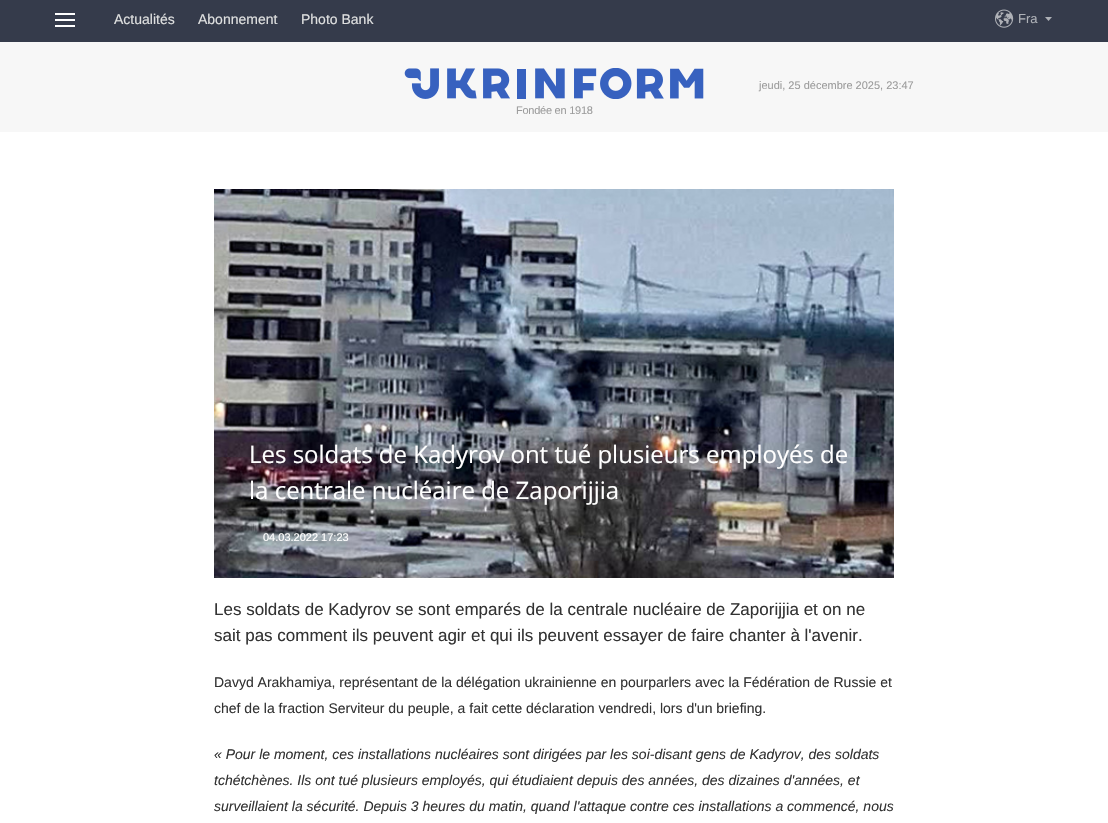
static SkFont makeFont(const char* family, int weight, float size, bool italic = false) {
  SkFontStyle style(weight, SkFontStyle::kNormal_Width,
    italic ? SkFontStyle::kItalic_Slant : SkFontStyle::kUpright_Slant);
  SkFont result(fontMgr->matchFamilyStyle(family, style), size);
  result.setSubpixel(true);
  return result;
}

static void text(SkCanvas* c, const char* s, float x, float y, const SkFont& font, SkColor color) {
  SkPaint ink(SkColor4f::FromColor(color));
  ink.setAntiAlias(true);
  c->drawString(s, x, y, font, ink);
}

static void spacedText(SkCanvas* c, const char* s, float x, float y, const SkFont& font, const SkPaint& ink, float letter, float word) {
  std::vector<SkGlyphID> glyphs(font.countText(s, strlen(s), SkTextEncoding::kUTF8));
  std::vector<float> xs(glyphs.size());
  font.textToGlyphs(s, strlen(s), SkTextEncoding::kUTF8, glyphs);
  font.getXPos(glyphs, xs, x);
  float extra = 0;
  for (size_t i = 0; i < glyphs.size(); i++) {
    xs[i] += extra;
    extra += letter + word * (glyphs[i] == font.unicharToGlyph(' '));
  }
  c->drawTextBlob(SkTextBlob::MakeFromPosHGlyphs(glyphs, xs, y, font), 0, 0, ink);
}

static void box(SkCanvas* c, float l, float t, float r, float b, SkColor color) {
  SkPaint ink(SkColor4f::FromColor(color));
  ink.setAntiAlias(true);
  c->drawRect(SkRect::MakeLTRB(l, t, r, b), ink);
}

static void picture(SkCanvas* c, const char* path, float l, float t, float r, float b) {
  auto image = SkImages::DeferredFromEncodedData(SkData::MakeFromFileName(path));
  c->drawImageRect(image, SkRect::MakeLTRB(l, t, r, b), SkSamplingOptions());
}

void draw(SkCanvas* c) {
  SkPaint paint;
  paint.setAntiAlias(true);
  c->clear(0xffffffff);
  box(c, 0, 42, 1108, 132, 0xfff7f7f7);
  box(c, 0, 0, 1108, 42, 0xff353b4b);
  box(c, 55, 13, 75, 15, 0xffffffff);
  box(c, 55, 25, 75, 27, 0xffffffff);
  box(c, 55, 19, 75, 21, 0xffffffff);
  SkFont face1 = makeFont("Liberation Sans", 400, 14);
  text(c, "Actualités", 114, 24, face1, 0xffdfe0e0);
  text(c, "Abonnement", 198, 24, face1, 0xffdfe0e0);
  text(c, "Photo Bank", 301, 24, face1, 0xffdfe0e0);
  picture(c, "img_01.png", 995, 9, 1014, 28);
  paint.setColor(0xffaeb1b7);
  c->drawPath(SkPathBuilder().moveTo(1048.5f, 21).lineTo(1045, 17).lineTo(1052, 17).close().detach(), paint);
  SkFont face2 = makeFont("Liberation Sans", 400, 13);
  text(c, "Fra", 1018, 23, face2, 0xffaeb1b7);
  picture(c, "img_02.png", 404, 68, 704, 99);
  SkFont face3 = makeFont("Liberation Sans", 400, 11);
  text(c, "jeudi, 25 décembre 2025, 23:47", 759, 89, face3, 0xff9c9c9c);
  paint.setColor(0xff9c9c9c);
  spacedText(c, "Fondée en 1918", 516, 114, face3, paint, -0.25f, 0);
  picture(c, "img_03.png", 214, 189, 894, 578);
  SkFont face4 = makeFont("Open Sans", 400, 24);
  text(c, "Les soldats de Kadyrov ont tué plusieurs employés de", 249, 463, face4, 0xffffffff);
  text(c, "la centrale nucléaire de Zaporijjia", 249, 499, face4, 0xffffffff);
  text(c, "04.03.2022 17:23", 263, 541, face3, 0xffffffff);
  SkFont face5 = makeFont("Liberation Sans", 400, 17);
  text(c, "Les soldats de Kadyrov se sont emparés de la centrale nucléaire de Zaporijjia et on ne", 214, 615, face5, 0xff333333);
  text(c, "sait pas comment ils peuvent agir et qui ils peuvent essayer de faire chanter à l'avenir.", 214, 641, face5, 0xff333333);
  text(c, "Davyd Arakhamiya, représentant de la délégation ukrainienne en pourparlers avec la Fédération de Russie et", 214, 687, face1, 0xff333333);
  text(c, "chef de la fraction Serviteur du peuple, a fait cette déclaration vendredi, lors d'un briefing.", 214, 713, face1, 0xff333333);
  SkFont face6 = makeFont("Liberation Sans", 400, 14, true);
  text(c, "« Pour le moment, ces installations nucléaires sont dirigées par les soi-disant gens de Kadyrov, des soldats", 214, 759, face6, 0xff333333);
  text(c, "tchétchènes. Ils ont tué plusieurs employés, qui étudiaient depuis des années, des dizaines d'années, et", 214, 785, face6, 0xff333333);
  text(c, "surveillaient la sécurité. Depuis 3 heures du matin, quand l'attaque contre ces installations a commencé, nous", 214, 811, face6, 0xff333333);
}
